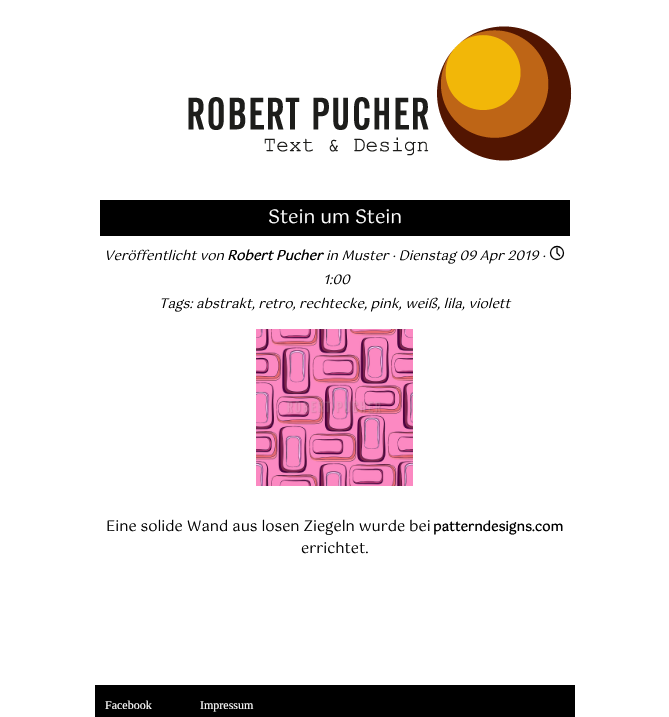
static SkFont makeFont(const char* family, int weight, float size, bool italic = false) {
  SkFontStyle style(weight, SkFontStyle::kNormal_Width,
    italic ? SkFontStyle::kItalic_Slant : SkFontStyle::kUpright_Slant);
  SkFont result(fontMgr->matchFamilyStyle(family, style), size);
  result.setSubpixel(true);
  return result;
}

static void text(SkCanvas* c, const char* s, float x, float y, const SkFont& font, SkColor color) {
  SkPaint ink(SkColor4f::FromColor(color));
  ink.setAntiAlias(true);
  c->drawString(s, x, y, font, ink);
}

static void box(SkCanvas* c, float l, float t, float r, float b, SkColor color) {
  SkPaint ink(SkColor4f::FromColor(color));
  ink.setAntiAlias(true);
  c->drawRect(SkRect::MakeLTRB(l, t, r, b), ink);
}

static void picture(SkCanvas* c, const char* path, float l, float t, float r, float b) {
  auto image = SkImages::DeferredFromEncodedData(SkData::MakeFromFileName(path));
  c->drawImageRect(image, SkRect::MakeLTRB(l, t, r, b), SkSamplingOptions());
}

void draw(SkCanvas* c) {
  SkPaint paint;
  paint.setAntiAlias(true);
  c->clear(0xffffffff);
  picture(c, "img_01.png", 188, 26, 572, 161);
  box(c, 100, 200, 570, 236, 0xff000000);
  SkFont face1 = makeFont("Gotu", 400, 18.75f);
  text(c, "Stein um Stein", 268, 223, face1, 0xffffffff);
  paint.setStyle(SkPaint::kStroke_Style);
  paint.setStrokeWidth(1.3f);
  paint.setColor(0xff000000);
  c->drawCircle(557, 253, 6.5f, paint);
  SkFont face2 = makeFont("Gotu", 400, 13.3f, true);
  text(c, "Veröffentlicht von", 104, 260, face2, 0xff000000);
  SkFont face3 = makeFont("Gotu", 700, 13.3f, true);
  text(c, "Robert Pucher", 227, 260, face3, 0xff000000);
  text(c, "in Muster · Dienstag 09 Apr 2019 ·", 326, 260, face2, 0xff000000);
  paint.setStrokeCap(SkPaint::kSquare_Cap);
  c->drawPath(SkPathBuilder().moveTo(557, 248.5f).lineTo(557, 253).lineTo(559.5f, 255.5f).detach(), paint);
  text(c, "1:00", 323, 284, face2, 0xff000000);
  text(c, "Tags: abstrakt, retro, rechtecke, pink, weiß, lila, violett", 159, 308, face2, 0xff000000);
  picture(c, "img_02.png", 256, 329, 413, 486);
  SkFont face4 = makeFont("Gotu", 400, 14.7f);
  text(c, "Eine solide Wand aus losen Ziegeln wurde bei", 106, 531, face4, 0xff000000);
  SkFont face5 = makeFont("Gotu", 700, 13.3f);
  text(c, "patterndesigns.com", 433, 531, face5, 0xff000000);
  text(c, "errichtet.", 301, 553, face4, 0xff000000);
  box(c, 95, 685, 575, 717, 0xff000000);
  SkFont face6 = makeFont("Liberation Serif", 400, 12);
  text(c, "Facebook", 105, 709, face6, 0xffffffff);
  text(c, "Impressum", 200, 709, face6, 0xffffffff);
}
